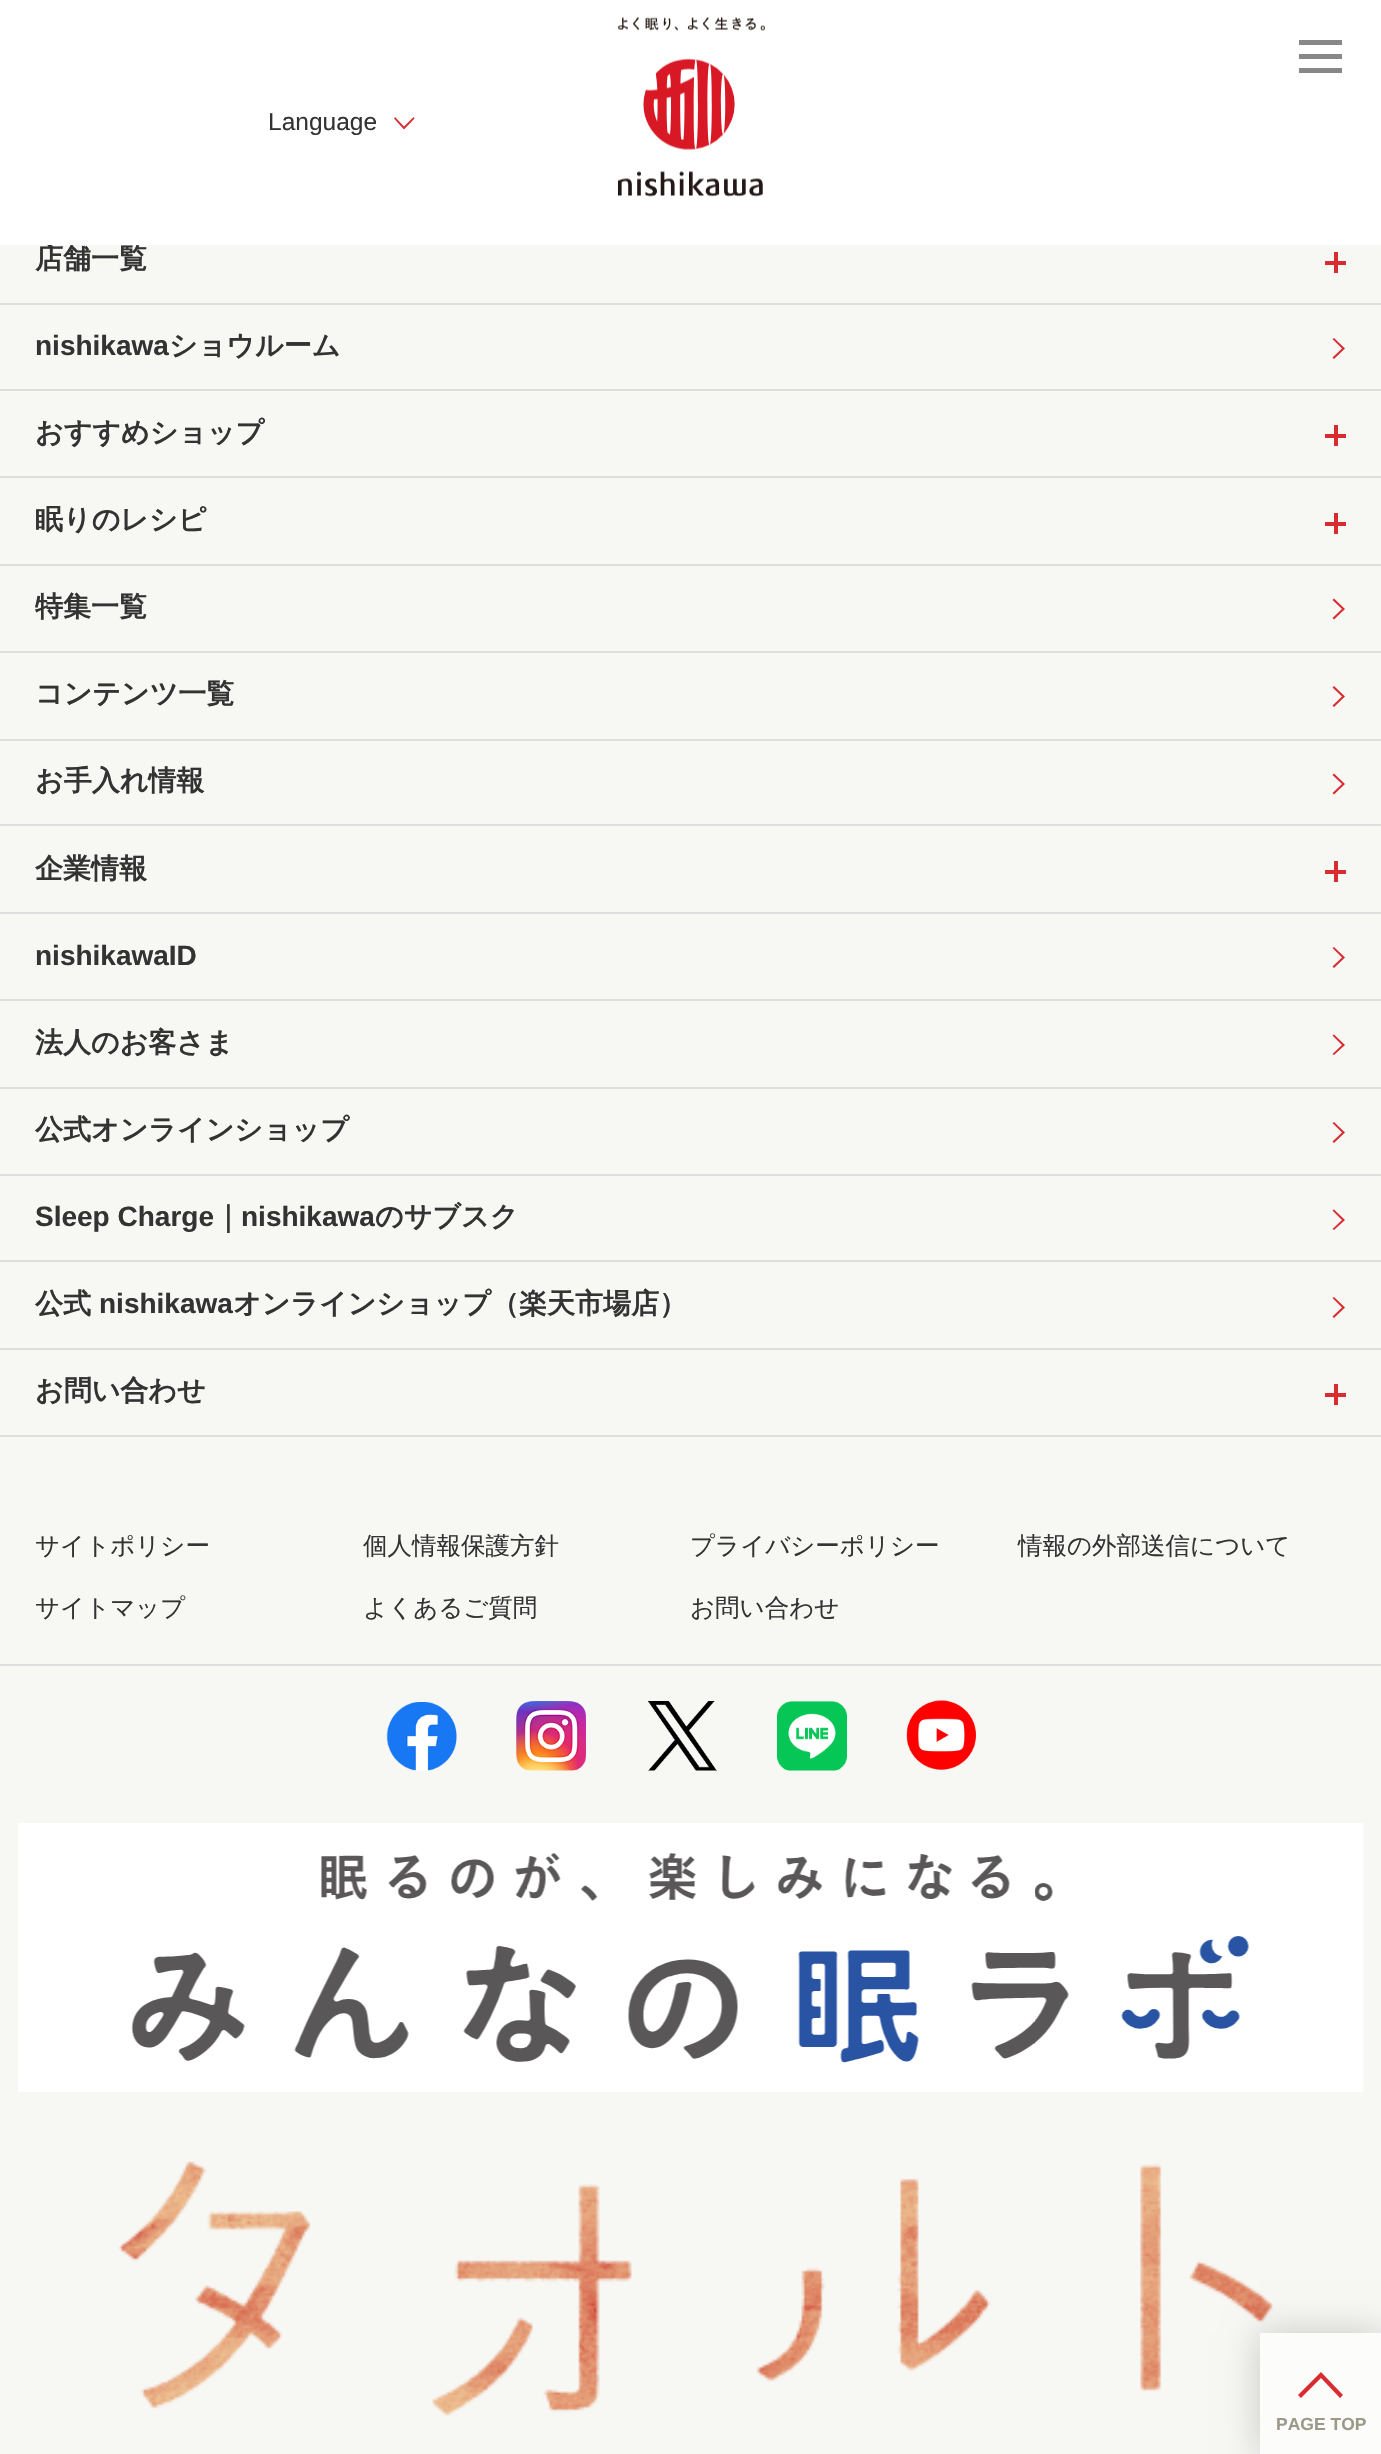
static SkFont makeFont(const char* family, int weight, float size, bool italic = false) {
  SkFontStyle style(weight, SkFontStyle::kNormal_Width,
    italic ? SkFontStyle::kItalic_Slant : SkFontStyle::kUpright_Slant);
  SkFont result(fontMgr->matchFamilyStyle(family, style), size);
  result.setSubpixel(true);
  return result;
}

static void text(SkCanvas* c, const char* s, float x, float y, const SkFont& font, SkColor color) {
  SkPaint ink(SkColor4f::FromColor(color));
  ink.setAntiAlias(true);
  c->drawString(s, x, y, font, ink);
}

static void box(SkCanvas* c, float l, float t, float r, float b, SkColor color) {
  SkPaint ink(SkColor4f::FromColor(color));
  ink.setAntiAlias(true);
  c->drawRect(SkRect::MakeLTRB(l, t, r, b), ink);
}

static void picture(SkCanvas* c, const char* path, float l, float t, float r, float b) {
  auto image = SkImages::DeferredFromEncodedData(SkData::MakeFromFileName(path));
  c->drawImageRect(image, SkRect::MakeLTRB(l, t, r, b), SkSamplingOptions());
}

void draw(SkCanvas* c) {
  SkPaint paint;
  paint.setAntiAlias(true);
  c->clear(0xfff7f7f4);
  SkFont face1 = makeFont("WenQuanYi Zen Hei", 700, 28);
  text(c, "店舗一覧", 35, 268, face1, 0xff333333);
  box(c, 0, 0, 1381, 245, 0xffffffff);
  picture(c, "img_01.png", 617, 17, 765, 197);
  box(c, 1299, 40, 1342, 45, 0xff888888);
  box(c, 1299, 54, 1342, 59, 0xff888888);
  box(c, 1299, 68, 1342, 73, 0xff888888);
  SkFont face2 = makeFont("Liberation Sans", 400, 24.5f);
  text(c, "Language", 268, 130, face2, 0xff333333);
  paint.setColor(0xffd92c31);
  c->drawPath(SkPathBuilder().moveTo(394, 118.5f).lineTo(395, 117).lineTo(404, 126.5f).lineTo(413.5f, 117).lineTo(414.5f, 118.5f).lineTo(404, 129.5f).close().detach(), paint);
  box(c, 1325, 261, 1346, 265, 0xffd92c31);
  box(c, 1334, 252, 1338, 273, 0xffd92c31);
  box(c, 0, 303, 1381, 305, 0xffdddddd);
  SkFont face3 = makeFont("Liberation Sans", 700, 28);
  text(c, "nishikawa", 35, 355, face3, 0xff333333);
  text(c, "ショウルーム", 169, 355, face1, 0xff333333);
  c->drawPath(SkPathBuilder().moveTo(1334, 359).lineTo(1332.5f, 357.5f).lineTo(1342, 348.5f).lineTo(1332.5f, 339).lineTo(1334, 338).lineTo(1345, 348.5f).close().detach(), paint);
  box(c, 0, 389, 1381, 391, 0xffdddddd);
  text(c, "おすすめショップ", 35, 442, face1, 0xff333333);
  box(c, 1325, 434, 1346, 438, 0xffd92c31);
  box(c, 1334, 425, 1338, 446, 0xffd92c31);
  box(c, 0, 476, 1381, 478, 0xffdddddd);
  text(c, "眠りのレシピ", 35, 529, face1, 0xff333333);
  box(c, 1325, 522, 1346, 526, 0xffd92c31);
  box(c, 1334, 513, 1338, 534, 0xffd92c31);
  box(c, 0, 564, 1381, 566, 0xffdddddd);
  text(c, "特集一覧", 35, 616, face1, 0xff333333);
  c->drawPath(SkPathBuilder().moveTo(1334, 619.5f).lineTo(1332.5f, 618).lineTo(1342, 609).lineTo(1332.5f, 600).lineTo(1334, 598.5f).lineTo(1345, 609).close().detach(), paint);
  box(c, 0, 651, 1381, 653, 0xffdddddd);
  text(c, "コンテンツ一覧", 35, 703, face1, 0xff333333);
  c->drawPath(SkPathBuilder().moveTo(1334, 707).lineTo(1332.5f, 705.5f).lineTo(1342, 696.5f).lineTo(1332.5f, 687.5f).lineTo(1334, 686).lineTo(1345, 696.5f).close().detach(), paint);
  box(c, 0, 739, 1381, 741, 0xffdddddd);
  text(c, "お手入れ情報", 35, 790, face1, 0xff333333);
  c->drawPath(SkPathBuilder().moveTo(1334, 794.5f).lineTo(1332.5f, 793).lineTo(1342, 784).lineTo(1332.5f, 775).lineTo(1334, 773.5f).lineTo(1345, 784).close().detach(), paint);
  box(c, 0, 824, 1381, 826, 0xffdddddd);
  text(c, "企業情報", 35, 878, face1, 0xff333333);
  box(c, 1325, 870, 1346, 874, 0xffd92c31);
  box(c, 1334, 861, 1338, 882, 0xffd92c31);
  box(c, 0, 912, 1381, 914, 0xffdddddd);
  text(c, "nishikawaID", 35, 965, face3, 0xff333333);
  c->drawPath(SkPathBuilder().moveTo(1334, 968).lineTo(1332.5f, 966.5f).lineTo(1342, 957.5f).lineTo(1332.5f, 948).lineTo(1334, 947).lineTo(1345, 957.5f).close().detach(), paint);
  box(c, 0, 999, 1381, 1001, 0xffdddddd);
  text(c, "法人のお客さま", 35, 1052, face1, 0xff333333);
  c->drawPath(SkPathBuilder().moveTo(1334, 1055).lineTo(1332.5f, 1054).lineTo(1342, 1045).lineTo(1332.5f, 1035.5f).lineTo(1334, 1034.5f).lineTo(1345, 1045).close().detach(), paint);
  box(c, 0, 1087, 1381, 1089, 0xffdddddd);
  text(c, "公式オンラインショップ", 35, 1139, face1, 0xff333333);
  c->drawPath(SkPathBuilder().moveTo(1334, 1143).lineTo(1332.5f, 1141.5f).lineTo(1342, 1132.5f).lineTo(1332.5f, 1123).lineTo(1334, 1122).lineTo(1345, 1132.5f).close().detach(), paint);
  box(c, 0, 1174, 1381, 1176, 0xffdddddd);
  text(c, "Sleep Charge", 35, 1226, face3, 0xff333333);
  text(c, "｜", 214, 1226, face1, 0xff333333);
  text(c, "nishikawa", 241, 1226, face3, 0xff333333);
  text(c, "のサブスク", 375, 1226, face1, 0xff333333);
  c->drawPath(SkPathBuilder().moveTo(1334, 1230).lineTo(1332.5f, 1229).lineTo(1342, 1220).lineTo(1332.5f, 1210.5f).lineTo(1334, 1209.5f).lineTo(1345, 1220).close().detach(), paint);
  box(c, 0, 1260, 1381, 1262, 0xffdddddd);
  text(c, "公式", 35, 1313, face1, 0xff333333);
  text(c, "nishikawa", 99, 1313, face3, 0xff333333);
  text(c, "オンラインショップ（楽天市場店）", 233, 1313, face1, 0xff333333);
  c->drawPath(SkPathBuilder().moveTo(1334, 1318).lineTo(1332.5f, 1316.5f).lineTo(1342, 1307.5f).lineTo(1332.5f, 1298).lineTo(1334, 1297).lineTo(1345, 1307.5f).close().detach(), paint);
  box(c, 0, 1348, 1381, 1350, 0xffdddddd);
  text(c, "お問い合わせ", 35, 1400, face1, 0xff333333);
  box(c, 1325, 1393, 1346, 1397, 0xffd92c31);
  box(c, 1334, 1384, 1338, 1405, 0xffd92c31);
  box(c, 0, 1435, 1381, 1437, 0xffdddddd);
  SkFont face4 = makeFont("WenQuanYi Zen Hei", 500, 24.5f);
  text(c, "サイトポリシー", 35, 1554, face4, 0xff333333);
  text(c, "個人情報保護方針", 363, 1554, face4, 0xff333333);
  text(c, "プライバシーポリシー", 690, 1554, face4, 0xff333333);
  text(c, "情報の外部送信について", 1018, 1554, face4, 0xff333333);
  text(c, "サイトマップ", 35, 1616, face4, 0xff333333);
  text(c, "よくあるご質問", 363, 1616, face4, 0xff333333);
  text(c, "お問い合わせ", 690, 1616, face4, 0xff333333);
  box(c, 0, 1664, 1381, 1666, 0xffdddddd);
  picture(c, "img_02.png", 386, 1702, 457, 1771);
  picture(c, "img_03.png", 516, 1701, 586, 1771);
  picture(c, "img_04.png", 647, 1701, 717, 1771);
  picture(c, "img_05.png", 777, 1701, 847, 1771);
  picture(c, "img_06.png", 906, 1700, 976, 1770);
  picture(c, "img_07.png", 18, 1823, 1364, 2092);
  picture(c, "img_08.png", 118, 2161, 1273, 2416);
  paint.setColor(0x33000000);
  paint.setMaskFilter(SkMaskFilter::MakeBlur(kNormal_SkBlurStyle, 17.5f));
  c->drawRect(SkRect::MakeLTRB(1260, 2333, 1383, 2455), paint);
  paint.setMaskFilter(nullptr);
  box(c, 1260, 2333, 1381, 2454, 0xfffcfcfb);
  paint.setColor(0xffd92c31);
  c->drawPath(SkPathBuilder().moveTo(1343, 2395).lineTo(1340, 2398).lineTo(1321, 2378).lineTo(1301, 2398).lineTo(1298, 2395).lineTo(1321, 2372).close().detach(), paint);
  SkFont face5 = makeFont("Liberation Sans", 700, 17.5f);
  text(c, "PAGE TOP", 1276, 2430, face5, 0xff9b9988);
}
